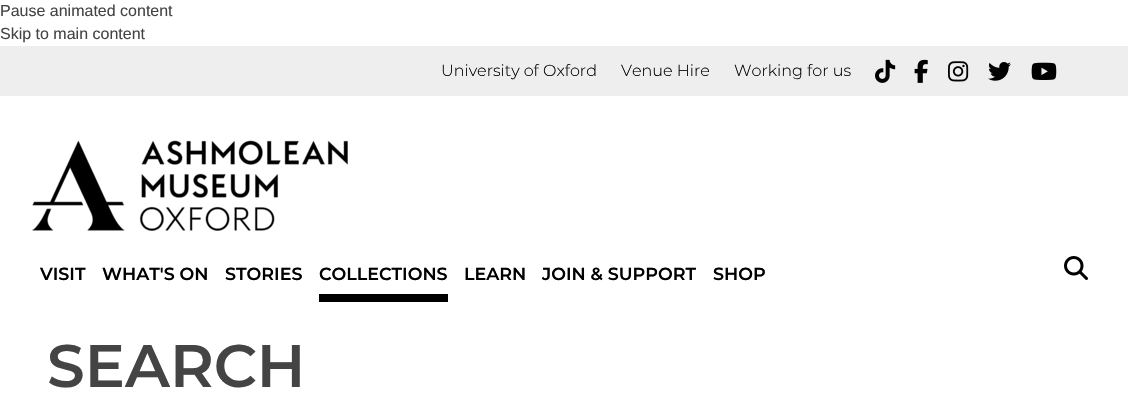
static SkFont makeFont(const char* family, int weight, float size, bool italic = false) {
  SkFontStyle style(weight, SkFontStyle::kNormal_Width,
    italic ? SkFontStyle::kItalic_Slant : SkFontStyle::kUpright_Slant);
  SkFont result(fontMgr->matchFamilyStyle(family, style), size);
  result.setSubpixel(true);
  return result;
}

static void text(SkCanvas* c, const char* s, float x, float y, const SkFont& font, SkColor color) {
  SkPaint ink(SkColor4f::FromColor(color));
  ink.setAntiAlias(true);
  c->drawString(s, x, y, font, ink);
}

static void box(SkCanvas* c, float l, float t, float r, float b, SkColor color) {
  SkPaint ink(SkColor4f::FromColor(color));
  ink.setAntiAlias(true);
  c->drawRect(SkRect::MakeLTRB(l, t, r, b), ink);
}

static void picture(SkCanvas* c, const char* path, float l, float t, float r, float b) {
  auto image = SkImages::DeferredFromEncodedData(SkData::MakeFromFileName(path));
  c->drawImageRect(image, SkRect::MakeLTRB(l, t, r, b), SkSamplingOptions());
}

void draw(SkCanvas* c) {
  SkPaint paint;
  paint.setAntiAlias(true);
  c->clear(0xffffffff);
  SkFont face1 = makeFont("Liberation Sans", 400, 16);
  text(c, "Pause animated content", 0, 16, face1, 0xff444444);
  text(c, "Skip to main content", 0, 39, face1, 0xff444444);
  box(c, 0, 46, 1128, 96, 0xffeeeeee);
  SkFont face2 = makeFont("Montserrat", 300, 16);
  text(c, "University of Oxford", 441, 76, face2, 0xff000000);
  text(c, "Venue Hire", 621, 76, face2, 0xff000000);
  text(c, "Working for us", 734, 76, face2, 0xff000000);
  picture(c, "img_01.png", 875, 59, 896, 83);
  picture(c, "img_02.png", 914, 59, 928, 83);
  picture(c, "img_03.png", 948, 61, 969, 82);
  picture(c, "img_04.png", 988, 62, 1011, 81);
  picture(c, "img_05.png", 1031, 62, 1057, 80);
  picture(c, "img_06.png", 32, 140, 348, 231);
  SkFont face3 = makeFont("Montserrat", 600, 17.5f);
  text(c, "VISIT", 40, 280, face3, 0xff000000);
  text(c, "WHAT'S ON", 102, 280, face3, 0xff000000);
  text(c, "STORIES", 225, 280, face3, 0xff000000);
  text(c, "COLLECTIONS", 319, 280, face3, 0xff000000);
  box(c, 319, 294, 448, 302, 0xff000000);
  text(c, "LEARN", 464, 280, face3, 0xff000000);
  text(c, "JOIN & SUPPORT", 542, 280, face3, 0xff000000);
  text(c, "SHOP", 713, 280, face3, 0xff000000);
  picture(c, "img_07.png", 1064, 256, 1088, 280);
  SkFont face4 = makeFont("Montserrat", 600, 60);
  text(c, "SEARCH", 47, 387, face4, 0xff444444);
}
